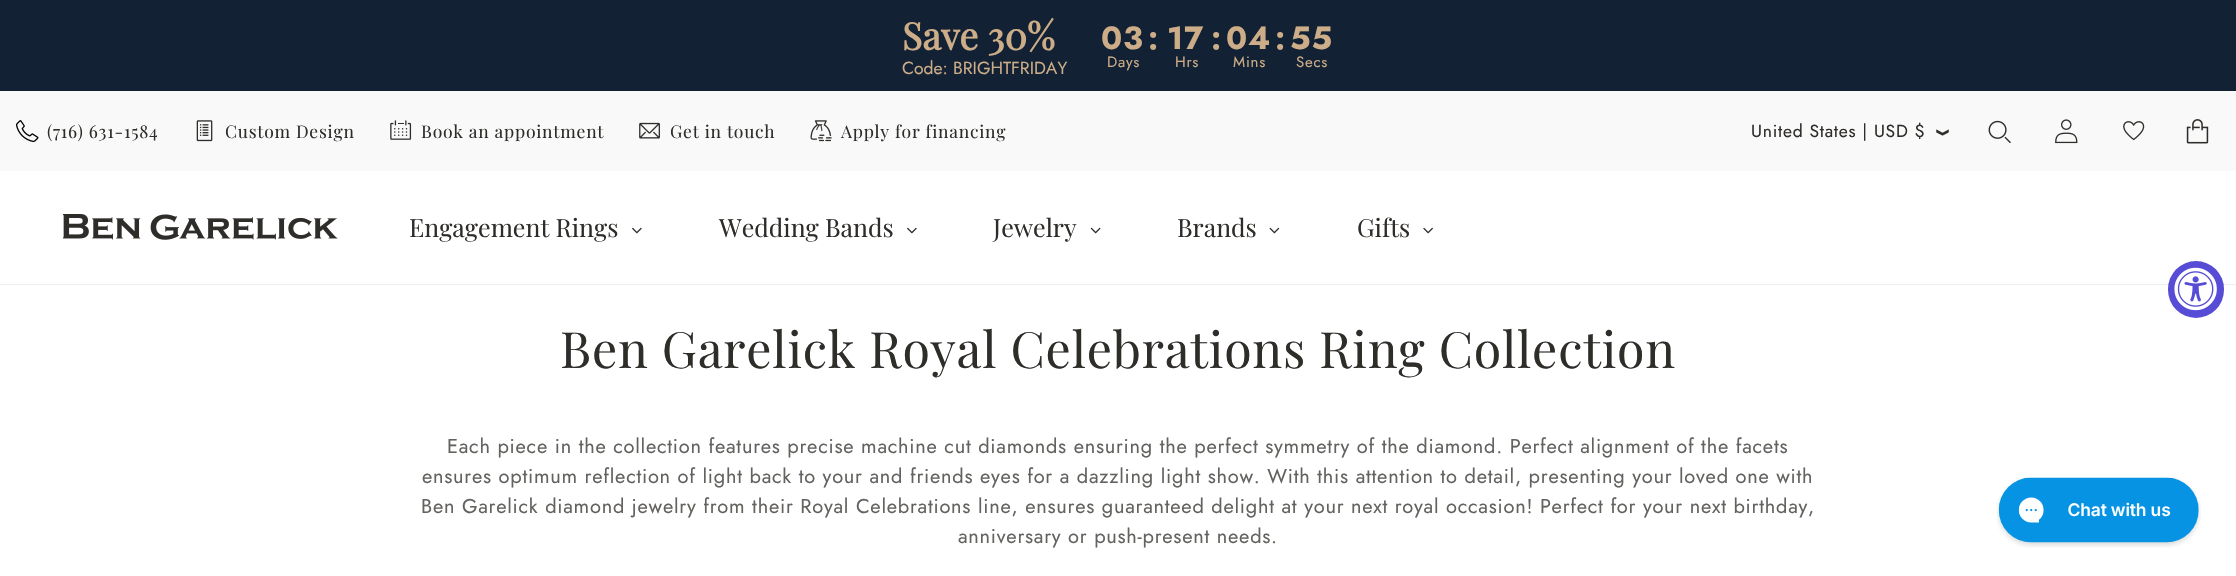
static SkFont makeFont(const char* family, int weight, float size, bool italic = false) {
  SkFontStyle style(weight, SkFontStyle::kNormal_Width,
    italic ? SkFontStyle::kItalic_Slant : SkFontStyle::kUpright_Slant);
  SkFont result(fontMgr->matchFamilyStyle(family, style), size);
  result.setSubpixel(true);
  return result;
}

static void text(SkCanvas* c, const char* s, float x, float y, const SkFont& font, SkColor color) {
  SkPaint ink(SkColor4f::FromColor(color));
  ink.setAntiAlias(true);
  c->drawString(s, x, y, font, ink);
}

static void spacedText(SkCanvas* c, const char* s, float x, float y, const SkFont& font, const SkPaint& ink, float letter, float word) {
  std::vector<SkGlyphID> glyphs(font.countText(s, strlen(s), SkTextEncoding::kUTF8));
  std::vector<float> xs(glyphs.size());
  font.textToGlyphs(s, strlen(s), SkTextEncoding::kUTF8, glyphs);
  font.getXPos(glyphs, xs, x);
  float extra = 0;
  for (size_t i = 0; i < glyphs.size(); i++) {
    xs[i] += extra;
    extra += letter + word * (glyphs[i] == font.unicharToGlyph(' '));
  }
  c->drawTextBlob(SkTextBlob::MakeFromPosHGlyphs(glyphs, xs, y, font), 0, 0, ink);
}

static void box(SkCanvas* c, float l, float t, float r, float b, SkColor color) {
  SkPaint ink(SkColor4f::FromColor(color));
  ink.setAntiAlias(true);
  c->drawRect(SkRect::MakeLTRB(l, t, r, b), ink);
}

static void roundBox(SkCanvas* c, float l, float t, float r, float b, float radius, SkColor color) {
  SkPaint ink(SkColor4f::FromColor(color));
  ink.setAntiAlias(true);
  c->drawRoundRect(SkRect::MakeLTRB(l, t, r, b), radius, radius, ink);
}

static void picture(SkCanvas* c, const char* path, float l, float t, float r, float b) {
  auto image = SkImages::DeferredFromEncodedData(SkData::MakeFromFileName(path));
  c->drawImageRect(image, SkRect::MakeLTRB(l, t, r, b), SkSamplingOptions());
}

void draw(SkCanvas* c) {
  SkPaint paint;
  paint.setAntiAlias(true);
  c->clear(0xffffffff);
  box(c, 0, 0, 2236, 91, 0xff122234);
  SkFont face1 = makeFont("Playfair Display", 700, 37.5f);
  text(c, "Save 30%", 902, 50, face1, 0xffcdad88);
  SkFont face2 = makeFont("Jost", 400, 17.5f);
  text(c, "Code: BRIGHTFRIDAY", 902, 74, face2, 0xffcdad88);
  SkFont face3 = makeFont("Jost", 700, 32);
  paint.setColor(0xffcdad88);
  spacedText(c, "03", 1101, 49, face3, paint, 0.75f, 0);
  spacedText(c, ":", 1148, 49, face3, paint, 0.75f, 0);
  spacedText(c, "17", 1167, 49, face3, paint, 0.75f, 0);
  spacedText(c, ":", 1211, 49, face3, paint, 0.75f, 0);
  spacedText(c, "04", 1226, 49, face3, paint, 0.75f, 0);
  spacedText(c, ":", 1275, 49, face3, paint, 0.75f, 0);
  spacedText(c, "55", 1290, 49, face3, paint, 0.75f, 0);
  SkFont face4 = makeFont("Jost", 400, 15);
  spacedText(c, "Days", 1107, 67, face4, paint, 0.75f, 0);
  spacedText(c, "Hrs", 1175, 67, face4, paint, 0.75f, 0);
  spacedText(c, "Mins", 1233, 67, face4, paint, 0.75f, 0);
  spacedText(c, "Secs", 1296, 67, face4, paint, 0.75f, 0);
  box(c, 0, 284, 2236, 285, 0xffeeeeee);
  box(c, 0, 91, 2236, 171, 0xfff9f9f9);
  picture(c, "img_01.png", 16, 120, 39, 143);
  SkFont face5 = makeFont("Playfair Display", 400, 17.5f);
  paint.setColor(0xff2f2d2a);
  spacedText(c, "(716) 631-1584", 47, 138, face5, paint, 0.75f, 0);
  picture(c, "img_02.png", 196, 120, 213, 142);
  spacedText(c, "Custom Design", 225, 138, face5, paint, 0.75f, 0);
  picture(c, "img_03.png", 390, 120, 412, 140);
  spacedText(c, "Book an appointment", 421, 138, face5, paint, 0.75f, 0);
  picture(c, "img_04.png", 639, 122, 660, 139);
  spacedText(c, "Get in touch", 670, 138, face5, paint, 0.75f, 0);
  picture(c, "img_05.png", 810, 120, 832, 142);
  spacedText(c, "Apply for financing", 841, 138, face5, paint, 0.75f, 0);
  spacedText(c, "United States | USD $", 1751, 137, face2, paint, 0.75f, 0);
  picture(c, "img_06.png", 1936, 129, 1949, 136);
  picture(c, "img_07.png", 1988, 120, 2011, 143);
  picture(c, "img_08.png", 2055, 119, 2078, 144);
  picture(c, "img_09.png", 2123, 121, 2145, 141);
  picture(c, "img_10.png", 2186, 119, 2209, 144);
  picture(c, "img_11.png", 63, 214, 338, 240);
  SkFont face6 = makeFont("Playfair Display", 400, 25);
  text(c, "Engagement Rings", 409, 237, face6, 0xff2f2d2a);
  picture(c, "img_12.png", 632, 227, 642, 234);
  text(c, "Wedding Bands", 719, 237, face6, 0xff2f2d2a);
  picture(c, "img_12.png", 907, 227, 917, 234);
  text(c, "Jewelry", 993, 237, face6, 0xff2f2d2a);
  picture(c, "img_13.png", 1090, 227, 1101, 234);
  text(c, "Brands", 1177, 237, face6, 0xff2f2d2a);
  picture(c, "img_14.png", 1269, 227, 1280, 234);
  text(c, "Gifts", 1357, 237, face6, 0xff2f2d2a);
  picture(c, "img_15.png", 1423, 227, 1433, 234);
  roundBox(c, 2168, 261, 2224, 318, 28, 0xff574cd5);
  picture(c, "img_16.png", 2174, 267, 2217, 311);
  SkFont face7 = makeFont("Playfair Display", 400, 50);
  spacedText(c, "Ben Garelick Royal Celebrations Ring Collection", 560, 368, face7, paint, 0.75f, 0);
  SkFont face8 = makeFont("Jost", 400, 20);
  paint.setColor(0xff63625f);
  spacedText(c, "Each piece in the collection features precise machine cut diamonds ensuring the perfect symmetry of the diamond. Perfect alignment of the facets", 447, 453, face8, paint, 0.75f, 0);
  spacedText(c, "ensures optimum reflection of light back to your and friends eyes for a dazzling light show. With this attention to detail, presenting your loved one with", 422, 483, face8, paint, 0.75f, 0);
  spacedText(c, "Ben Garelick diamond jewelry from their Royal Celebrations line, ensures guaranteed delight at your next royal occasion! Perfect for your next birthday,", 421, 513, face8, paint, 0.75f, 0);
  spacedText(c, "anniversary or push-present needs.", 958, 543, face8, paint, 0.75f, 0);
  picture(c, "img_17.png", 1996, 477, 2201, 548);
}
